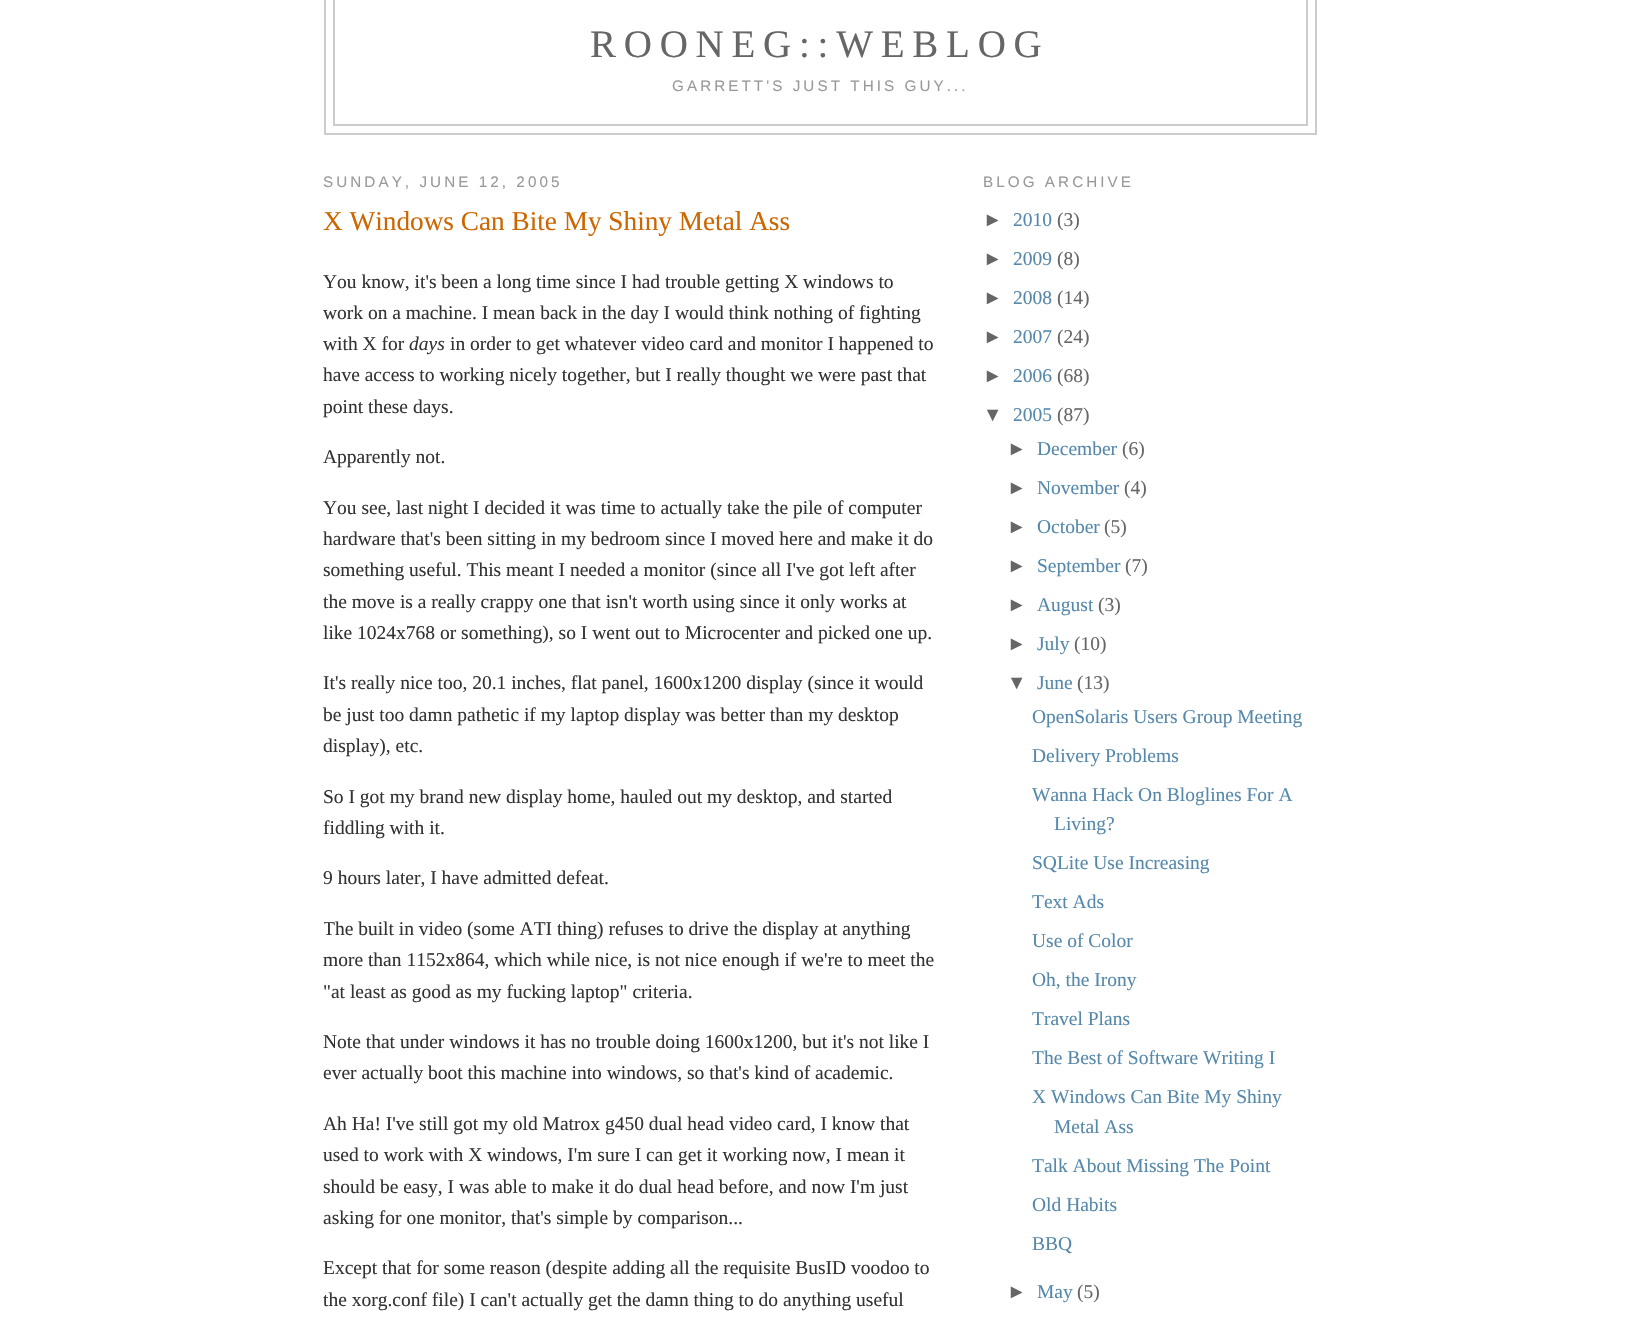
static SkFont makeFont(const char* family, int weight, float size, bool italic = false) {
  SkFontStyle style(weight, SkFontStyle::kNormal_Width,
    italic ? SkFontStyle::kItalic_Slant : SkFontStyle::kUpright_Slant);
  SkFont result(fontMgr->matchFamilyStyle(family, style), size);
  result.setSubpixel(true);
  return result;
}

static void text(SkCanvas* c, const char* s, float x, float y, const SkFont& font, SkColor color) {
  SkPaint ink(SkColor4f::FromColor(color));
  ink.setAntiAlias(true);
  c->drawString(s, x, y, font, ink);
}

static void spacedText(SkCanvas* c, const char* s, float x, float y, const SkFont& font, const SkPaint& ink, float letter, float word) {
  std::vector<SkGlyphID> glyphs(font.countText(s, strlen(s), SkTextEncoding::kUTF8));
  std::vector<float> xs(glyphs.size());
  font.textToGlyphs(s, strlen(s), SkTextEncoding::kUTF8, glyphs);
  font.getXPos(glyphs, xs, x);
  float extra = 0;
  for (size_t i = 0; i < glyphs.size(); i++) {
    xs[i] += extra;
    extra += letter + word * (glyphs[i] == font.unicharToGlyph(' '));
  }
  c->drawTextBlob(SkTextBlob::MakeFromPosHGlyphs(glyphs, xs, y, font), 0, 0, ink);
}

void draw(SkCanvas* c) {
  SkPaint paint;
  paint.setAntiAlias(true);
  c->clear(0xffffffff);
  paint.setStyle(SkPaint::kStroke_Style);
  paint.setStrokeWidth(2);
  paint.setColor(0xffcccccc);
  c->drawRect(SkRect::MakeLTRB(325, -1, 1316, 134), paint);
  c->drawRect(SkRect::MakeLTRB(334, -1, 1307, 125), paint);
  SkFont face1 = makeFont("Liberation Serif", 400, 39);
  paint.setStyle(SkPaint::kFill_Style);
  paint.setColor(0xff666666);
  spacedText(c, "ROONEG::WEBLOG", 590, 57, face1, paint, 7.75f, 0);
  SkFont face2 = makeFont("Liberation Sans", 400, 15.25f);
  paint.setColor(0xff999999);
  spacedText(c, "GARRETT'S JUST THIS GUY...", 672, 91, face2, paint, 3.05f, 0);
  spacedText(c, "SUNDAY, JUNE 12, 2005", 323, 187, face2, paint, 3.05f, 0);
  SkFont face3 = makeFont("Liberation Serif", 400, 27.25f);
  text(c, "X Windows Can Bite My Shiny Metal Ass", 323, 230, face3, 0xffcc6600);
  SkFont face4 = makeFont("Liberation Serif", 400, 19.5f);
  text(c, "You know, it's been a long time since I had trouble getting X windows to", 323, 288, face4, 0xff333333);
  text(c, "work on a machine. I mean back in the day I would think nothing of fighting", 323, 319, face4, 0xff333333);
  text(c, "with X for", 323, 350, face4, 0xff333333);
  SkFont face5 = makeFont("Liberation Serif", 400, 19.5f, true);
  text(c, "days", 409, 350, face5, 0xff333333);
  text(c, "in order to get whatever video card and monitor I happened to", 450, 350, face4, 0xff333333);
  text(c, "have access to working nicely together, but I really thought we were past that", 323, 381, face4, 0xff333333);
  text(c, "point these days.", 323, 413, face4, 0xff333333);
  text(c, "Apparently not.", 323, 463, face4, 0xff333333);
  text(c, "You see, last night I decided it was time to actually take the pile of computer", 323, 514, face4, 0xff333333);
  text(c, "hardware that's been sitting in my bedroom since I moved here and make it do", 323, 545, face4, 0xff333333);
  text(c, "something useful. This meant I needed a monitor (since all I've got left after", 323, 576, face4, 0xff333333);
  text(c, "the move is a really crappy one that isn't worth using since it only works at", 323, 608, face4, 0xff333333);
  text(c, "like 1024x768 or something), so I went out to Microcenter and picked one up.", 323, 639, face4, 0xff333333);
  text(c, "It's really nice too, 20.1 inches, flat panel, 1600x1200 display (since it would", 323, 689, face4, 0xff333333);
  text(c, "be just too damn pathetic if my laptop display was better than my desktop", 323, 721, face4, 0xff333333);
  text(c, "display), etc.", 323, 752, face4, 0xff333333);
  text(c, "So I got my brand new display home, hauled out my desktop, and started", 323, 803, face4, 0xff333333);
  text(c, "fiddling with it.", 323, 834, face4, 0xff333333);
  text(c, "9 hours later, I have admitted defeat.", 323, 884, face4, 0xff333333);
  c->save();
  c->clipRect(SkRect::MakeLTRB(324, 150, 939, 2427));
  text(c, "The built in video (some ATI thing) refuses to drive the display at anything", 323, 935, face4, 0xff333333);
  c->restore();
  text(c, "more than 1152x864, which while nice, is not nice enough if we're to meet the", 323, 966, face4, 0xff333333);
  text(c, "\"at least as good as my fucking laptop\" criteria.", 323, 998, face4, 0xff333333);
  text(c, "Note that under windows it has no trouble doing 1600x1200, but it's not like I", 323, 1048, face4, 0xff333333);
  text(c, "ever actually boot this machine into windows, so that's kind of academic.", 323, 1079, face4, 0xff333333);
  text(c, "Ah Ha! I've still got my old Matrox g450 dual head video card, I know that", 323, 1130, face4, 0xff333333);
  text(c, "used to work with X windows, I'm sure I can get it working now, I mean it", 323, 1161, face4, 0xff333333);
  text(c, "should be easy, I was able to make it do dual head before, and now I'm just", 323, 1193, face4, 0xff333333);
  text(c, "asking for one monitor, that's simple by comparison...", 323, 1224, face4, 0xff333333);
  text(c, "Except that for some reason (despite adding all the requisite BusID voodoo to", 323, 1274, face4, 0xff333333);
  text(c, "the xorg.conf file) I can't actually get the damn thing to do anything useful", 323, 1306, face4, 0xff333333);
  spacedText(c, "BLOG ARCHIVE", 983, 187, face2, paint, 3.05f, 0);
  SkFont face6 = makeFont("Liberation Sans", 400, 19.5f);
  text(c, "►", 983, 226, face6, 0xff666666);
  text(c, "2010", 1013, 226, face4, 0xff5588aa);
  text(c, "(3)", 1057, 226, face4, 0xff666666);
  text(c, "►", 983, 265, face6, 0xff666666);
  text(c, "2009", 1013, 265, face4, 0xff5588aa);
  text(c, "(8)", 1057, 265, face4, 0xff666666);
  text(c, "►", 983, 304, face6, 0xff666666);
  text(c, "2008", 1013, 304, face4, 0xff5588aa);
  text(c, "(14)", 1057, 304, face4, 0xff666666);
  text(c, "►", 983, 343, face6, 0xff666666);
  text(c, "2007", 1013, 343, face4, 0xff5588aa);
  text(c, "(24)", 1057, 343, face4, 0xff666666);
  text(c, "►", 983, 382, face6, 0xff666666);
  text(c, "2006", 1013, 382, face4, 0xff5588aa);
  text(c, "(68)", 1057, 382, face4, 0xff666666);
  text(c, "▼", 983, 421, face6, 0xff666666);
  text(c, "2005", 1013, 421, face4, 0xff5588aa);
  text(c, "(87)", 1057, 421, face4, 0xff666666);
  text(c, "►", 1007, 455, face6, 0xff666666);
  text(c, "December", 1037, 455, face4, 0xff5588aa);
  text(c, "(6)", 1122, 455, face4, 0xff666666);
  text(c, "►", 1007, 494, face6, 0xff666666);
  text(c, "November", 1037, 494, face4, 0xff5588aa);
  text(c, "(4)", 1124, 494, face4, 0xff666666);
  text(c, "►", 1007, 533, face6, 0xff666666);
  text(c, "October", 1037, 533, face4, 0xff5588aa);
  text(c, "(5)", 1104, 533, face4, 0xff666666);
  text(c, "►", 1007, 572, face6, 0xff666666);
  text(c, "September", 1037, 572, face4, 0xff5588aa);
  text(c, "(7)", 1125, 572, face4, 0xff666666);
  text(c, "►", 1007, 611, face6, 0xff666666);
  text(c, "August", 1037, 611, face4, 0xff5588aa);
  text(c, "(3)", 1098, 611, face4, 0xff666666);
  text(c, "►", 1007, 650, face6, 0xff666666);
  text(c, "July", 1037, 650, face4, 0xff5588aa);
  text(c, "(10)", 1074, 650, face4, 0xff666666);
  text(c, "▼", 1007, 689, face6, 0xff666666);
  text(c, "June", 1037, 689, face4, 0xff5588aa);
  text(c, "(13)", 1077, 689, face4, 0xff666666);
  text(c, "OpenSolaris Users Group Meeting", 1032, 723, face4, 0xff5588aa);
  text(c, "Delivery Problems", 1032, 762, face4, 0xff5588aa);
  text(c, "Wanna Hack On Bloglines For A", 1032, 801, face4, 0xff5588aa);
  text(c, "Living?", 1054, 830, face4, 0xff5588aa);
  text(c, "SQLite Use Increasing", 1032, 869, face4, 0xff5588aa);
  text(c, "Text Ads", 1032, 908, face4, 0xff5588aa);
  text(c, "Use of Color", 1032, 947, face4, 0xff5588aa);
  text(c, "Oh, the Irony", 1032, 986, face4, 0xff5588aa);
  text(c, "Travel Plans", 1032, 1025, face4, 0xff5588aa);
  text(c, "The Best of Software Writing I", 1032, 1064, face4, 0xff5588aa);
  text(c, "X Windows Can Bite My Shiny", 1032, 1103, face4, 0xff5588aa);
  text(c, "Metal Ass", 1054, 1133, face4, 0xff5588aa);
  text(c, "Talk About Missing The Point", 1032, 1172, face4, 0xff5588aa);
  text(c, "Old Habits", 1032, 1211, face4, 0xff5588aa);
  text(c, "BBQ", 1032, 1250, face4, 0xff5588aa);
  text(c, "►", 1007, 1298, face6, 0xff666666);
  text(c, "May", 1037, 1298, face4, 0xff5588aa);
  text(c, "(5)", 1077, 1298, face4, 0xff666666);
}
